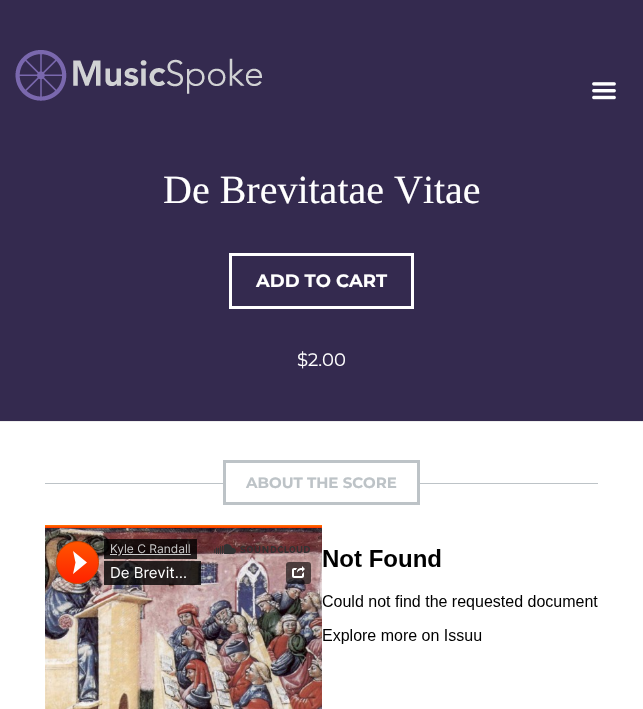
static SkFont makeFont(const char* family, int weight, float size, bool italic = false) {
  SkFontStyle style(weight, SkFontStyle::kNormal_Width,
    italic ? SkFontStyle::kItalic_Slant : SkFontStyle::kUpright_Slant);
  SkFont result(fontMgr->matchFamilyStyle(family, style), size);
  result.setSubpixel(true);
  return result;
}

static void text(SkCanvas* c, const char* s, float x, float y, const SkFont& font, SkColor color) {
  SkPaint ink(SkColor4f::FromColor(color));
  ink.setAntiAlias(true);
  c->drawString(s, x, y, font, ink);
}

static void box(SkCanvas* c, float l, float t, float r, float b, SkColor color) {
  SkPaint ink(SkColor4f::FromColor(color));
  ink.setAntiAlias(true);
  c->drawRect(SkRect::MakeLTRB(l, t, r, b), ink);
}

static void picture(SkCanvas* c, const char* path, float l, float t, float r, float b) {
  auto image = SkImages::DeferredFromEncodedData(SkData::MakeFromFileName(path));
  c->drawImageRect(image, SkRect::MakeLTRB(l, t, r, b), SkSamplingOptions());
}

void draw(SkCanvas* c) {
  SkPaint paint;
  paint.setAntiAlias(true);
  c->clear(0xffffffff);
  box(c, 0, 0, 643, 421, 0xff342a4f);
  picture(c, "img_01.png", 15, 50, 262, 101);
  picture(c, "img_02.png", 592, 82, 616, 100);
  box(c, 0, 421, 643, 422, 0xffeeeeee);
  SkFont face1 = makeFont("Liberation Serif", 400, 40);
  text(c, "De Brevitatae Vitae", 163, 203, face1, 0xffffffff);
  paint.setStyle(SkPaint::kStroke_Style);
  paint.setStrokeWidth(3);
  paint.setColor(0xffffffff);
  c->drawRect(SkRect::MakeLTRB(230.5f, 254.5f, 412.5f, 307.5f), paint);
  SkFont face2 = makeFont("Montserrat", 700, 18);
  text(c, "ADD TO CART", 256, 287, face2, 0xffffffff);
  SkFont face3 = makeFont("Montserrat", 400, 18);
  text(c, "$2.00", 297, 366, face3, 0xffffffff);
  box(c, 45, 483, 598, 484, 0xffbdc3c7);
  box(c, 226, 483, 417, 484, 0xffffffff);
  paint.setColor(0xffbdc3c7);
  c->drawRect(SkRect::MakeLTRB(224.5f, 461.5f, 418.5f, 503.5f), paint);
  SkFont face4 = makeFont("Montserrat", 700, 15);
  text(c, "ABOUT THE SCORE", 246, 488, face4, 0xffbdc3c7);
  picture(c, "img_03.png", 45, 525, 322, 709);
  picture(c, "img_04.png", 322, 549, 598, 644);
}
